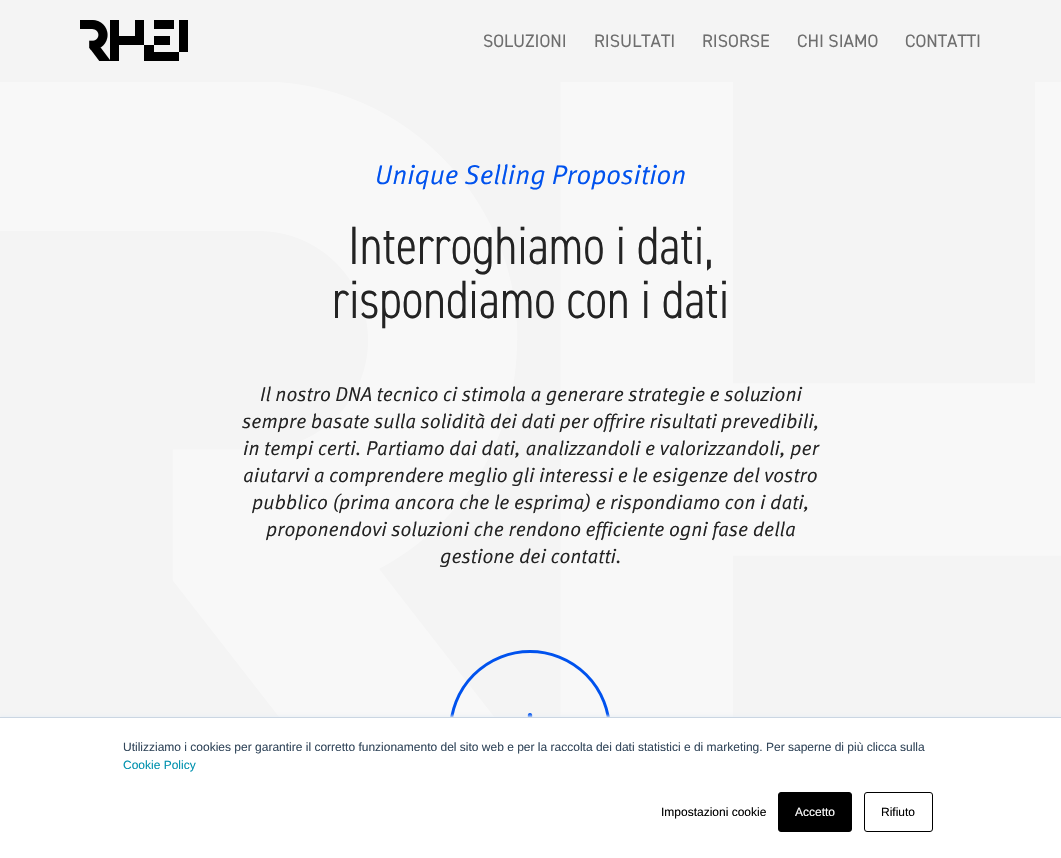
static SkFont makeFont(const char* family, int weight, float size, bool italic = false) {
  SkFontStyle style(weight, SkFontStyle::kNormal_Width,
    italic ? SkFontStyle::kItalic_Slant : SkFontStyle::kUpright_Slant);
  SkFont result(fontMgr->matchFamilyStyle(family, style), size);
  result.setSubpixel(true);
  return result;
}

static void text(SkCanvas* c, const char* s, float x, float y, const SkFont& font, SkColor color) {
  SkPaint ink(SkColor4f::FromColor(color));
  ink.setAntiAlias(true);
  c->drawString(s, x, y, font, ink);
}

static void box(SkCanvas* c, float l, float t, float r, float b, SkColor color) {
  SkPaint ink(SkColor4f::FromColor(color));
  ink.setAntiAlias(true);
  c->drawRect(SkRect::MakeLTRB(l, t, r, b), ink);
}

static void picture(SkCanvas* c, const char* path, float l, float t, float r, float b) {
  auto image = SkImages::DeferredFromEncodedData(SkData::MakeFromFileName(path));
  c->drawImageRect(image, SkRect::MakeLTRB(l, t, r, b), SkSamplingOptions());
}

void draw(SkCanvas* c) {
  SkPaint paint;
  paint.setAntiAlias(true);
  c->clear(0xfff4f4f4);
  picture(c, "img_01.png", 80, 20, 188, 61);
  SkFont face1 = makeFont("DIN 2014", 400, 18);
  text(c, "SOLUZIONI", 483, 47, face1, 0xff6e6e6e);
  text(c, "RISULTATI", 594, 47, face1, 0xff6e6e6e);
  text(c, "RISORSE", 702, 47, face1, 0xff6e6e6e);
  text(c, "CHI SIAMO", 797, 47, face1, 0xff6e6e6e);
  text(c, "CONTATTI", 905, 47, face1, 0xff6e6e6e);
  picture(c, "img_02.png", 0, 82, 1061, 717);
  SkFont face2 = makeFont("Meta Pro", 400, 27, true);
  text(c, "Unique Selling Proposition", 375, 184, face2, 0xff0052ee);
  SkFont face3 = makeFont("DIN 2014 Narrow", 300, 54);
  text(c, "Interroghiamo i dati,", 348, 264, face3, 0xff232323);
  text(c, "rispondiamo con i dati", 332, 318, face3, 0xff232323);
  SkFont face4 = makeFont("Meta Pro", 400, 20, true);
  text(c, "Il nostro DNA tecnico ci stimola a generare strategie e soluzioni", 260, 401, face4, 0xff232323);
  text(c, "sempre basate sulla solidità dei dati per offrire risultati prevedibili,", 242, 428, face4, 0xff232323);
  text(c, "in tempi certi. Partiamo dai dati, analizzandoli e valorizzandoli, per", 243, 455, face4, 0xff232323);
  text(c, "aiutarvi a comprendere meglio gli interessi e le esigenze del vostro", 243, 482, face4, 0xff232323);
  text(c, "pubblico (prima ancora che le esprima) e rispondiamo con i dati,", 252, 509, face4, 0xff232323);
  text(c, "proponendovi soluzioni che rendono efficiente ogni fase della", 266, 536, face4, 0xff232323);
  text(c, "gestione dei contatti.", 440, 563, face4, 0xff232323);
  paint.setStyle(SkPaint::kStroke_Style);
  paint.setStrokeWidth(3);
  paint.setColor(0xff0052ee);
  c->drawCircle(530, 731, 79.5f, paint);
  picture(c, "img_03.png", 527, 713, 533, 717);
  paint.setStyle(SkPaint::kFill_Style);
  paint.setColor(0xffeaf0f6);
  paint.setMaskFilter(SkMaskFilter::MakeBlur(kNormal_SkBlurStyle, 1.5f));
  c->drawRect(SkRect::MakeLTRB(0, 716, 1061, 857), paint);
  paint.setMaskFilter(nullptr);
  box(c, 0, 718, 1061, 858, 0xffffffff);
  box(c, 0, 717, 1061, 718, 0xffcbd6e2);
  SkFont face5 = makeFont("Liberation Sans", 400, 12);
  text(c, "Utilizziamo i cookies per garantire il corretto funzionamento del sito web e per la raccolta dei dati statistici e di marketing. Per saperne di più clicca sulla", 123, 751, face5, 0xff33475b);
  text(c, "Cookie Policy", 123, 769, face5, 0xff0091ae);
  text(c, "Impostazioni cookie", 661, 816, face5, 0xff000000);
  paint.setColor(0xff000000);
  c->drawRoundRect(SkRect::MakeLTRB(778.5f, 792.5f, 851.5f, 831.5f), 2.5f, 2.5f, paint);
  paint.setStyle(SkPaint::kStroke_Style);
  paint.setStrokeWidth(1);
  c->drawRoundRect(SkRect::MakeLTRB(778.5f, 792.5f, 851.5f, 831.5f), 2.5f, 2.5f, paint);
  text(c, "Accetto", 795, 816, face5, 0xffffffff);
  c->drawRoundRect(SkRect::MakeLTRB(864.5f, 792.5f, 932.5f, 831.5f), 2.5f, 2.5f, paint);
  text(c, "Rifiuto", 881, 816, face5, 0xff000000);
}
